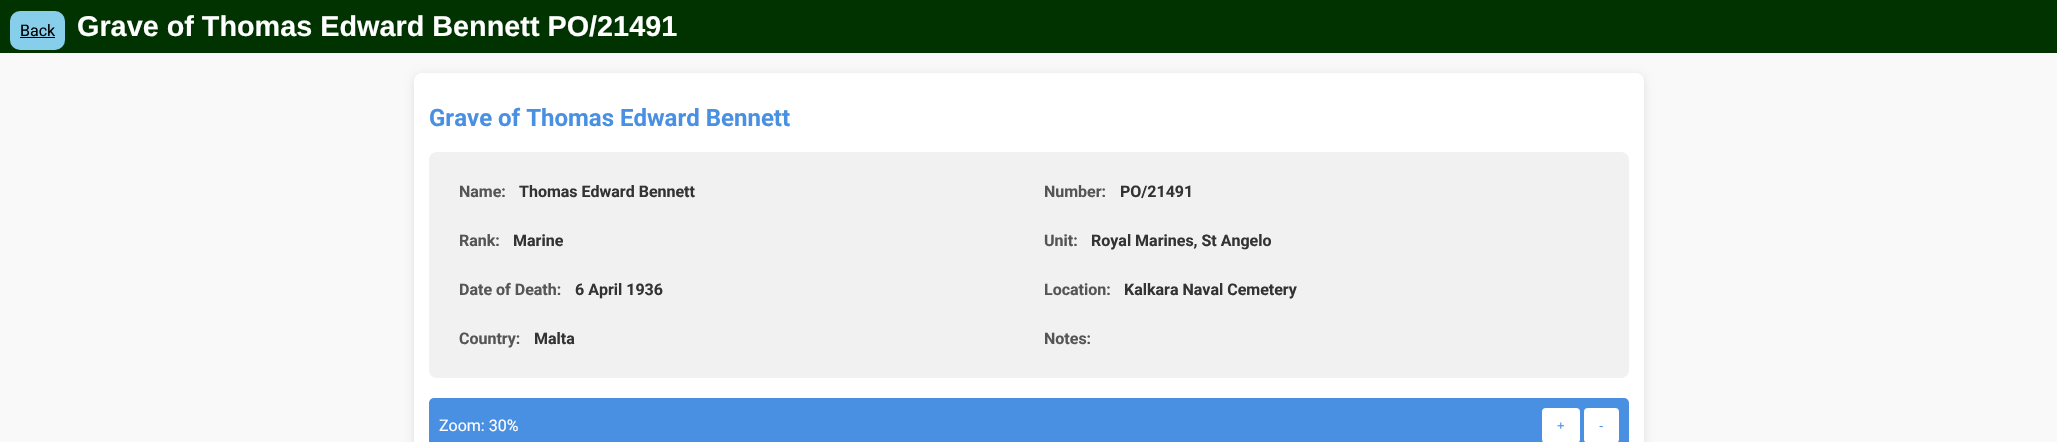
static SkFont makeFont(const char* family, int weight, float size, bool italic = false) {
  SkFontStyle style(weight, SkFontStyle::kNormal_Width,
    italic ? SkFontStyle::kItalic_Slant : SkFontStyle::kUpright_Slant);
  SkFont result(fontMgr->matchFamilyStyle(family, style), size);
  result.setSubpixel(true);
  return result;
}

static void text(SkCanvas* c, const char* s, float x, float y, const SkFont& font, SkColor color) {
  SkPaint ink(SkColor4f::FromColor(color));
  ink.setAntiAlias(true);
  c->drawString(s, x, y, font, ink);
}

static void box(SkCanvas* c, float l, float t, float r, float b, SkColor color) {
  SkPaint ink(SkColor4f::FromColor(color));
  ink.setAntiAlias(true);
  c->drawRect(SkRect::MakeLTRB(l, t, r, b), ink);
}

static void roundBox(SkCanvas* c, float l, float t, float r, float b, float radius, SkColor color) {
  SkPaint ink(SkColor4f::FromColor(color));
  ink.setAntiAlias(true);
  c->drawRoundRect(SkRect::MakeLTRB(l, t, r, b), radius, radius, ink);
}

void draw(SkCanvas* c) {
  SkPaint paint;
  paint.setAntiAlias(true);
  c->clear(0xfff9f9f9);
  box(c, 0, 0, 2057, 53, 0xff003300);
  roundBox(c, 10, 11, 65, 50, 10, 0xff87ceeb);
  SkFont face1 = makeFont("Roboto", 400, 16);
  text(c, "Back", 20, 36, face1, 0xff000000);
  box(c, 20, 37, 55, 38, 0xff000000);
  SkFont face2 = makeFont("Liberation Sans", 700, 28.8f);
  text(c, "Grave of Thomas Edward Bennett PO/21491", 77, 36, face2, 0xffffffff);
  paint.setColor(0x1a000000);
  paint.setMaskFilter(SkMaskFilter::MakeBlur(kNormal_SkBlurStyle, 5));
  c->drawRoundRect(SkRect::MakeLTRB(414, 75, 1644, 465), 8, 8, paint);
  paint.setMaskFilter(nullptr);
  roundBox(c, 414, 73, 1644, 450, 8, 0xffffffff);
  SkFont face3 = makeFont("Roboto", 700, 24);
  text(c, "Grave of Thomas Edward Bennett", 429, 126, face3, 0xff4a90e2);
  roundBox(c, 429, 152, 1629, 378, 8, 0xfff1f1f1);
  SkFont face4 = makeFont("Roboto", 700, 16);
  text(c, "Name:", 459, 197, face4, 0xff555555);
  text(c, "Thomas Edward Bennett", 519, 197, face4, 0xff333333);
  text(c, "Number:", 1044, 197, face4, 0xff555555);
  text(c, "PO/21491", 1120, 197, face4, 0xff333333);
  text(c, "Rank:", 459, 246, face4, 0xff555555);
  text(c, "Marine", 513, 246, face4, 0xff333333);
  text(c, "Unit:", 1044, 246, face4, 0xff555555);
  text(c, "Royal Marines, St Angelo", 1091, 246, face4, 0xff333333);
  text(c, "Date of Death:", 459, 295, face4, 0xff555555);
  text(c, "6 April 1936", 575, 295, face4, 0xff333333);
  text(c, "Location:", 1044, 295, face4, 0xff555555);
  text(c, "Kalkara Naval Cemetery", 1124, 295, face4, 0xff333333);
  text(c, "Country:", 459, 344, face4, 0xff555555);
  text(c, "Malta", 534, 344, face4, 0xff333333);
  text(c, "Notes:", 1044, 344, face4, 0xff555555);
  roundBox(c, 429, 398, 1629, 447, 5, 0xff4a90e2);
  text(c, "Zoom: 30%", 439, 431, face1, 0xffffffff);
  roundBox(c, 1542, 408, 1580, 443, 4, 0xffffffff);
  SkFont face5 = makeFont("Liberation Sans", 400, 13);
  text(c, "+", 1557, 430, face5, 0xff4a90e2);
  roundBox(c, 1584, 408, 1619, 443, 4, 0xffffffff);
  text(c, "-", 1599, 430, face5, 0xff4a90e2);
}
